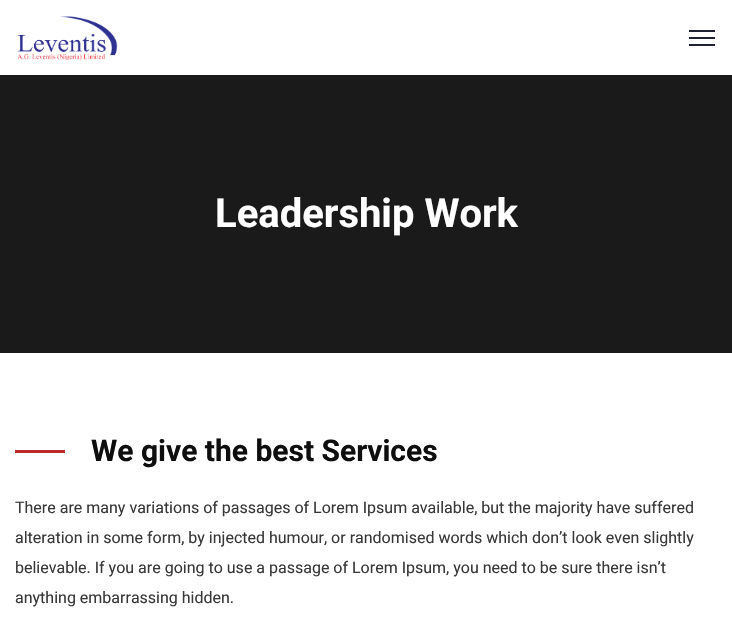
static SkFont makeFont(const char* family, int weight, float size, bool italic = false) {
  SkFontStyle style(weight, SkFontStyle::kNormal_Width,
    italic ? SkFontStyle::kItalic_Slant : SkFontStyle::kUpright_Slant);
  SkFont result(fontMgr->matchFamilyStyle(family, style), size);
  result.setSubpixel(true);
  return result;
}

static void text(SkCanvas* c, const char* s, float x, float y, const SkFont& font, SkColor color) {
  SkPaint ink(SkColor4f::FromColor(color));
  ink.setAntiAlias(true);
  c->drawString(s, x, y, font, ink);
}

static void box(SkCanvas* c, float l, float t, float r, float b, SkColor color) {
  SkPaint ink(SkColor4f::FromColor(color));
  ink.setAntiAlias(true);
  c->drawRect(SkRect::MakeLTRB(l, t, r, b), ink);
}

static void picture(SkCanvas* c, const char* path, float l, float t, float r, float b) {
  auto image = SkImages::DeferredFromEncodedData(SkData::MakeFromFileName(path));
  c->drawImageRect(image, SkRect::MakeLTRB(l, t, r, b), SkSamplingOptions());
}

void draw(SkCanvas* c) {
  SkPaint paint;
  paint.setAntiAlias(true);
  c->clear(0xffffffff);
  picture(c, "img_01.png", 17, 16, 118, 60);
  box(c, 689, 30, 715, 32, 0xff1f2233);
  box(c, 689, 37, 715, 39, 0xff1f2233);
  box(c, 689, 44, 715, 46, 0xff1f2233);
  box(c, 0, 75, 732, 353, 0xff1a1a1a);
  SkFont face1 = makeFont("Roboto", 700, 40);
  text(c, "Leadership Work", 215, 227, face1, 0xffffffff);
  box(c, 15, 450, 65, 453, 0xffc1282a);
  SkFont face2 = makeFont("Roboto", 700, 30);
  text(c, "We give the best Services", 91, 461, face2, 0xff0e0e0e);
  SkFont face3 = makeFont("Roboto", 400, 16);
  text(c, "There are many variations of passages of Lorem Ipsum available, but the majority have suffered", 15, 513, face3, 0xff383838);
  text(c, "alteration in some form, by injected humour, or randomised words which don’t look even slightly", 15, 543, face3, 0xff383838);
  text(c, "believable. If you are going to use a passage of Lorem Ipsum, you need to be sure there isn’t", 15, 573, face3, 0xff383838);
  text(c, "anything embarrassing hidden.", 15, 603, face3, 0xff383838);
}
